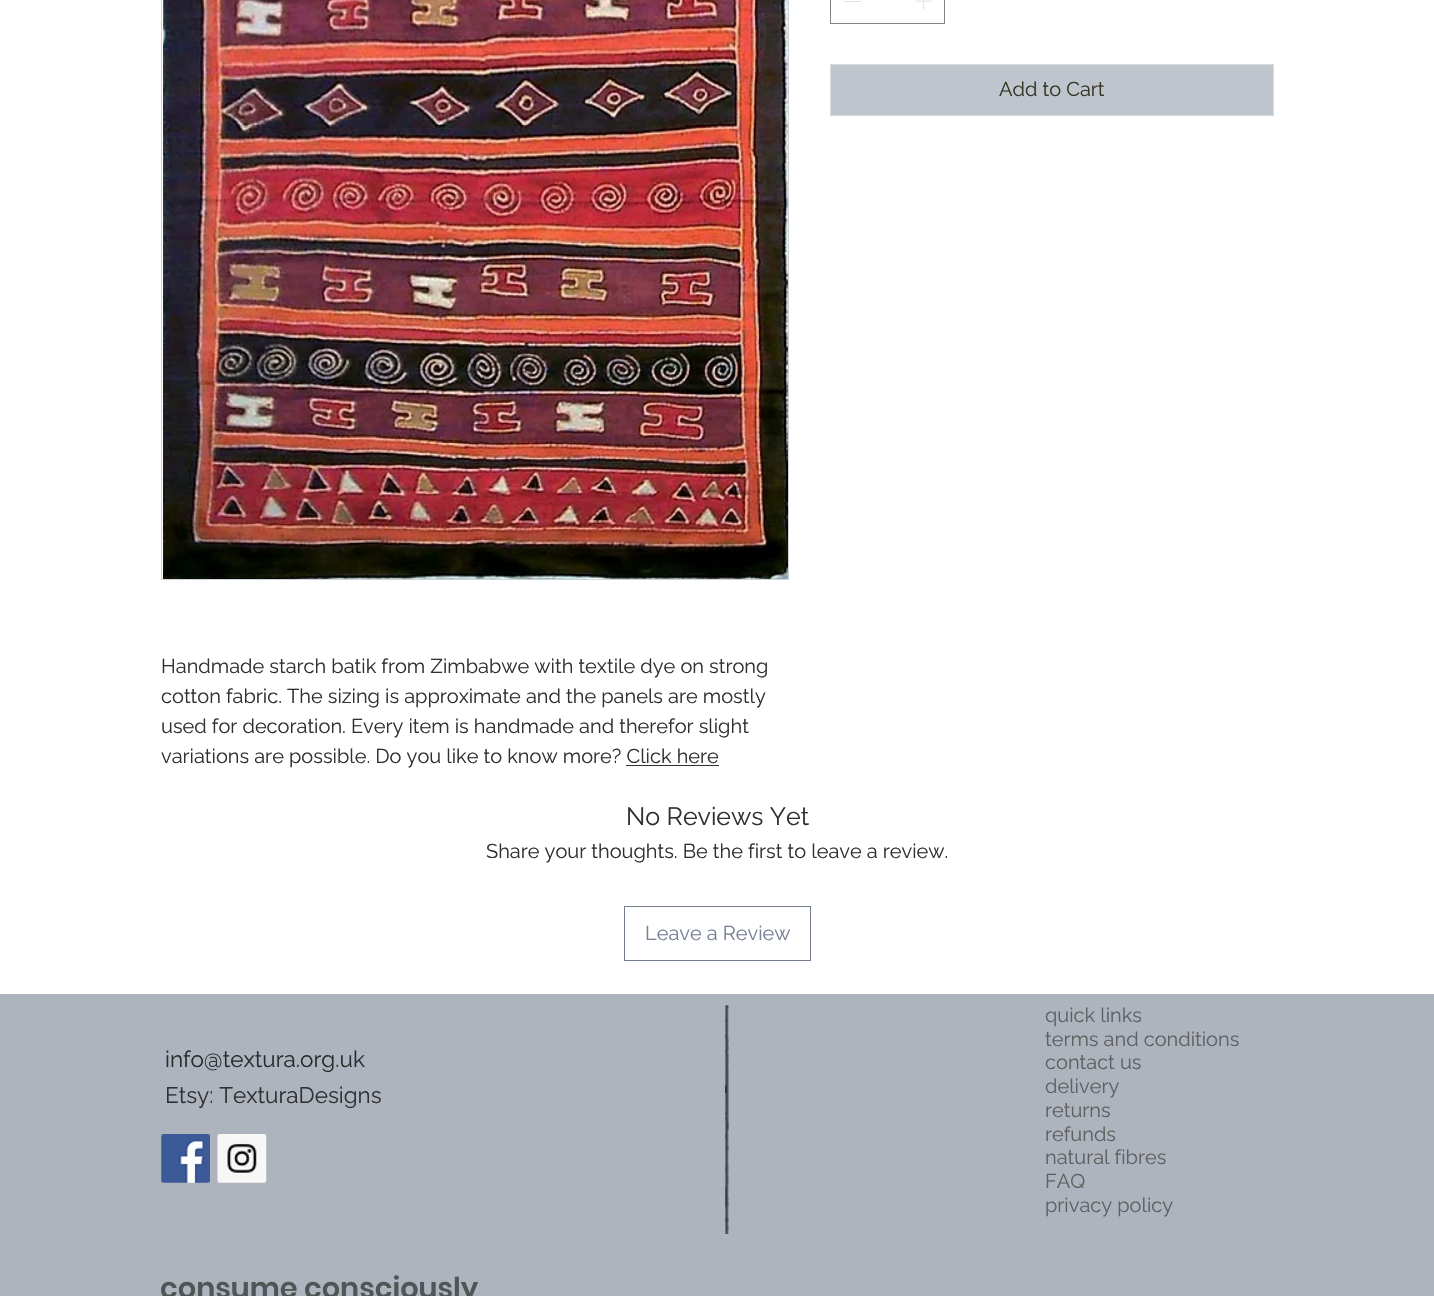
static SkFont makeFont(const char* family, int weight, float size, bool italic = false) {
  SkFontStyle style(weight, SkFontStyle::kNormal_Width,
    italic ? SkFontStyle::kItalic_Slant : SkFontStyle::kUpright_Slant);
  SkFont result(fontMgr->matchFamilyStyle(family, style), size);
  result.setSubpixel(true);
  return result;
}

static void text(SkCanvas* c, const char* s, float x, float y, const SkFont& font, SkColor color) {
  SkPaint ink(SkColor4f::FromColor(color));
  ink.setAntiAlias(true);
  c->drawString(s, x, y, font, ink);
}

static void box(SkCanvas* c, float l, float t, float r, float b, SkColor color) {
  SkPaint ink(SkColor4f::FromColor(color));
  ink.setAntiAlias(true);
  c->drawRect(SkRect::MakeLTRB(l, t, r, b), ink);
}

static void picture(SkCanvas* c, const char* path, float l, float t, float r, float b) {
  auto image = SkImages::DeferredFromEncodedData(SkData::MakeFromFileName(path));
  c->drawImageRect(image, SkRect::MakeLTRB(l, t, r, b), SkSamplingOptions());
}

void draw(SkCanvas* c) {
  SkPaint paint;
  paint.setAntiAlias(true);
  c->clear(0xffffffff);
  paint.setStyle(SkPaint::kStroke_Style);
  paint.setStrokeWidth(1);
  paint.setColor(0xff838383);
  c->drawRect(SkRect::MakeLTRB(830.5f, -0.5f, 944.5f, 23.5f), paint);
  box(c, 844, 1, 861, 2, 0xffe3e3e3);
  picture(c, "img_01.png", 915, 0, 932, 10);
  paint.setStyle(SkPaint::kFill_Style);
  paint.setColor(0xffbfc5cd);
  c->drawRect(SkRect::MakeLTRB(830.5f, 64.5f, 1273.5f, 115.5f), paint);
  paint.setStyle(SkPaint::kStroke_Style);
  paint.setColor(0xffdbdbdb);
  c->drawRect(SkRect::MakeLTRB(830.5f, 64.5f, 1273.5f, 115.5f), paint);
  SkFont face1 = makeFont("Raleway", 400, 20);
  text(c, "Add to Cart", 999, 96, face1, 0xff343421);
  paint.setColor(0xffcdd2db);
  c->drawRect(SkRect::MakeLTRB(161.5f, -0.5f, 788.5f, 579.5f), paint);
  picture(c, "img_02.png", 163, 0, 788, 579);
  text(c, "Handmade starch batik from Zimbabwe with textile dye on strong", 161, 673, face1, 0xff303030);
  text(c, "cotton fabric. The sizing is approximate and the panels are mostly", 161, 703, face1, 0xff303030);
  text(c, "used for decoration. Every item is handmade and therefor slight", 161, 733, face1, 0xff303030);
  text(c, "variations are possible. Do you like to know more? Click here", 161, 763, face1, 0xff303030);
  box(c, 626, 765, 719, 766, 0xff303030);
  SkFont face2 = makeFont("Raleway", 400, 25);
  text(c, "No Reviews Yet", 626, 825, face2, 0xff303030);
  text(c, "Share your thoughts. Be the first to leave a review.", 486, 858, face1, 0xff303030);
  paint.setColor(0xff748092);
  c->drawRect(SkRect::MakeLTRB(624.5f, 906.5f, 810.5f, 960.5f), paint);
  text(c, "Leave a Review", 645, 940, face1, 0xff748092);
  box(c, 0, 994, 1434, 1296, 0xffaeb4be);
  SkFont face3 = makeFont("Raleway", 400, 22.5f);
  text(c, "info@textura.org.uk", 165, 1067, face3, 0xff272c2b);
  text(c, "Etsy: TexturaDesigns", 165, 1103, face3, 0xff303030);
  picture(c, "img_03.png", 725, 1005, 729, 1234);
  text(c, "quick links", 1045, 1022, face1, 0xff606060);
  text(c, "terms and conditions", 1045, 1046, face1, 0xff606060);
  text(c, "contact us", 1045, 1069, face1, 0xff606060);
  text(c, "delivery", 1045, 1093, face1, 0xff606060);
  text(c, "returns", 1045, 1117, face1, 0xff606060);
  text(c, "refunds", 1045, 1141, face1, 0xff606060);
  text(c, "natural fibres", 1045, 1164, face1, 0xff606060);
  text(c, "FAQ", 1045, 1188, face1, 0xff606060);
  text(c, "privacy policy", 1045, 1212, face1, 0xff606060);
  picture(c, "img_04.png", 161, 1134, 210, 1183);
  picture(c, "img_05.png", 217, 1134, 267, 1183);
  SkFont face4 = makeFont("Poppins", 600, 28.75f);
  text(c, "consume consciously", 160, 1298, face4, 0xff4e5756);
}
